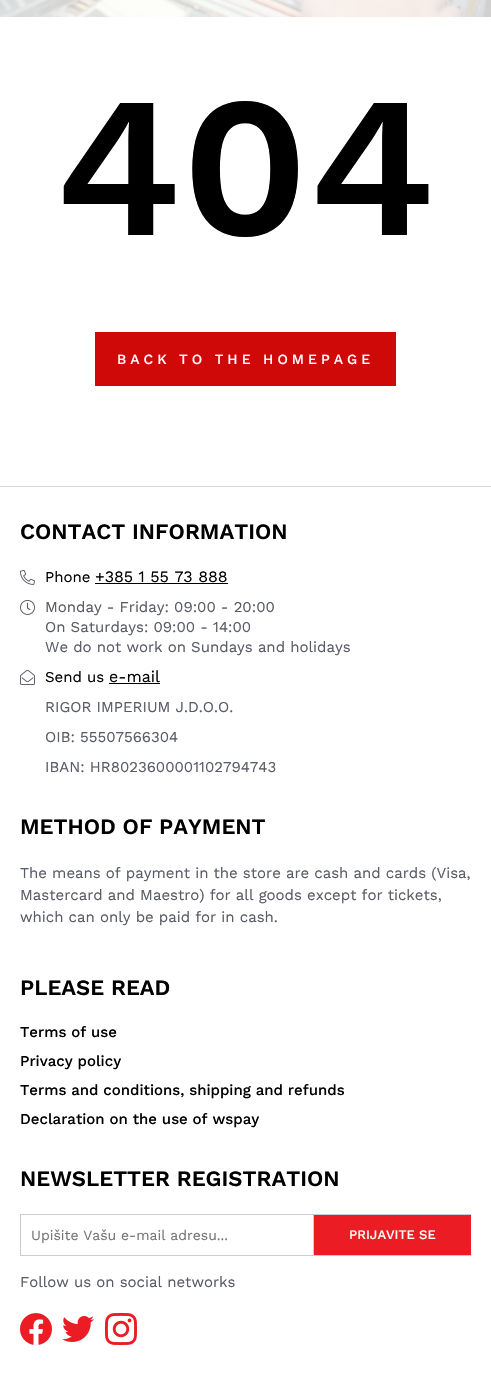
static SkFont makeFont(const char* family, int weight, float size, bool italic = false) {
  SkFontStyle style(weight, SkFontStyle::kNormal_Width,
    italic ? SkFontStyle::kItalic_Slant : SkFontStyle::kUpright_Slant);
  SkFont result(fontMgr->matchFamilyStyle(family, style), size);
  result.setSubpixel(true);
  return result;
}

static void text(SkCanvas* c, const char* s, float x, float y, const SkFont& font, SkColor color) {
  SkPaint ink(SkColor4f::FromColor(color));
  ink.setAntiAlias(true);
  c->drawString(s, x, y, font, ink);
}

static void spacedText(SkCanvas* c, const char* s, float x, float y, const SkFont& font, const SkPaint& ink, float letter, float word) {
  std::vector<SkGlyphID> glyphs(font.countText(s, strlen(s), SkTextEncoding::kUTF8));
  std::vector<float> xs(glyphs.size());
  font.textToGlyphs(s, strlen(s), SkTextEncoding::kUTF8, glyphs);
  font.getXPos(glyphs, xs, x);
  float extra = 0;
  for (size_t i = 0; i < glyphs.size(); i++) {
    xs[i] += extra;
    extra += letter + word * (glyphs[i] == font.unicharToGlyph(' '));
  }
  c->drawTextBlob(SkTextBlob::MakeFromPosHGlyphs(glyphs, xs, y, font), 0, 0, ink);
}

static void box(SkCanvas* c, float l, float t, float r, float b, SkColor color) {
  SkPaint ink(SkColor4f::FromColor(color));
  ink.setAntiAlias(true);
  c->drawRect(SkRect::MakeLTRB(l, t, r, b), ink);
}

static void picture(SkCanvas* c, const char* path, float l, float t, float r, float b) {
  auto image = SkImages::DeferredFromEncodedData(SkData::MakeFromFileName(path));
  c->drawImageRect(image, SkRect::MakeLTRB(l, t, r, b), SkSamplingOptions());
}

void draw(SkCanvas* c) {
  SkPaint paint;
  paint.setAntiAlias(true);
  c->clear(0xffffffff);
  picture(c, "img_01.png", 0, 0, 491, 17);
  SkFont face1 = makeFont("Work Sans", 600, 200);
  text(c, "404", 55, 235, face1, 0xff000000);
  box(c, 95, 332, 396, 386, 0xffcf0808);
  SkFont face2 = makeFont("Work Sans", 500, 14);
  paint.setColor(0xffffffff);
  spacedText(c, "BACK TO THE HOMEPAGE", 117, 364, face2, paint, 4, 0);
  box(c, 0, 486, 491, 487, 0xffd8d8d8);
  SkFont face3 = makeFont("Work Sans", 600, 22);
  text(c, "CONTACT INFORMATION", 20, 539, face3, 0xff000000);
  picture(c, "img_02.png", 20, 570, 35, 585);
  SkFont face4 = makeFont("Work Sans", 400, 15);
  text(c, "Phone", 45, 582, face4, 0xff000000);
  SkFont face5 = makeFont("Work Sans", 400, 16);
  text(c, "+385 1 55 73 888", 95, 582, face5, 0xff000000);
  box(c, 95, 583, 228, 584, 0xff000000);
  picture(c, "img_03.png", 20, 599, 35, 615);
  text(c, "Monday - Friday: 09:00 - 20:00", 45, 612, face4, 0xff595b66);
  text(c, "On Saturdays: 09:00 - 14:00", 45, 632, face4, 0xff595b66);
  text(c, "We do not work on Sundays and holidays", 45, 652, face4, 0xff595b66);
  picture(c, "img_04.png", 20, 670, 35, 685);
  text(c, "Send us", 45, 682, face4, 0xff000000);
  text(c, "e-mail", 109, 682, face5, 0xff000000);
  box(c, 109, 683, 160, 684, 0xff000000);
  text(c, "RIGOR IMPERIUM J.D.O.O.", 45, 712, face4, 0xff595b66);
  text(c, "OIB: 55507566304", 45, 742, face4, 0xff595b66);
  text(c, "IBAN: HR8023600001102794743", 45, 772, face4, 0xff595b66);
  text(c, "METHOD OF PAYMENT", 20, 834, face3, 0xff000000);
  text(c, "The means of payment in the store are cash and cards (Visa,", 20, 878, face4, 0xff595b66);
  text(c, "Mastercard and Maestro) for all goods except for tickets,", 20, 900, face4, 0xff595b66);
  text(c, "which can only be paid for in cash.", 20, 922, face4, 0xff595b66);
  text(c, "PLEASE READ", 20, 995, face3, 0xff000000);
  SkFont face6 = makeFont("Work Sans", 500, 15);
  text(c, "Terms of use", 20, 1037, face6, 0xff000000);
  text(c, "Privacy policy", 20, 1066, face6, 0xff000000);
  text(c, "Terms and conditions, shipping and refunds", 20, 1095, face6, 0xff000000);
  text(c, "Declaration on the use of wspay", 20, 1124, face6, 0xff000000);
  text(c, "NEWSLETTER REGISTRATION", 20, 1186, face3, 0xff000000);
  box(c, 20, 1214, 471, 1215, 0xffc9cbd6);
  box(c, 20, 1255, 471, 1256, 0xffc9cbd6);
  box(c, 20, 1214, 21, 1256, 0xffc9cbd6);
  SkFont face7 = makeFont("Work Sans", 400, 14);
  text(c, "Upišite Vašu e-mail adresu...", 31, 1240, face7, 0xff757575);
  box(c, 314, 1215, 471, 1255, 0xffeb1c24);
  box(c, 313, 1214, 314, 1256, 0xffc9cbd6);
  SkFont face8 = makeFont("Work Sans", 500, 13);
  text(c, "PRIJAVITE SE", 349, 1239, face8, 0xffffffff);
  text(c, "Follow us on social networks", 20, 1287, face4, 0xff595b66);
  picture(c, "img_05.png", 20, 1313, 52, 1345);
  picture(c, "img_06.png", 62, 1316, 94, 1342);
  picture(c, "img_07.png", 105, 1313, 137, 1345);
}
